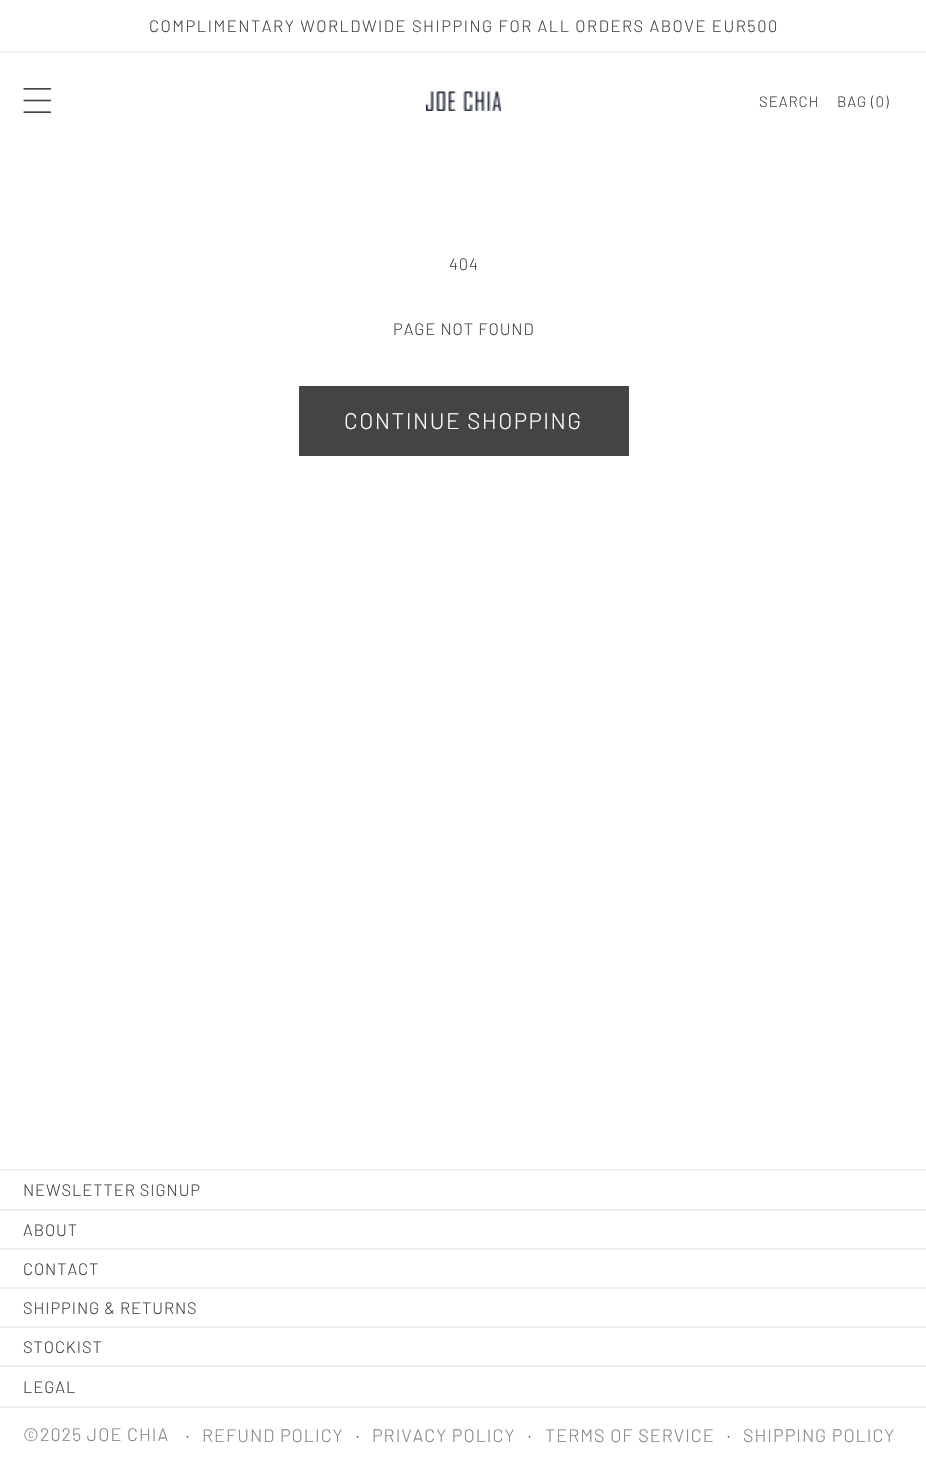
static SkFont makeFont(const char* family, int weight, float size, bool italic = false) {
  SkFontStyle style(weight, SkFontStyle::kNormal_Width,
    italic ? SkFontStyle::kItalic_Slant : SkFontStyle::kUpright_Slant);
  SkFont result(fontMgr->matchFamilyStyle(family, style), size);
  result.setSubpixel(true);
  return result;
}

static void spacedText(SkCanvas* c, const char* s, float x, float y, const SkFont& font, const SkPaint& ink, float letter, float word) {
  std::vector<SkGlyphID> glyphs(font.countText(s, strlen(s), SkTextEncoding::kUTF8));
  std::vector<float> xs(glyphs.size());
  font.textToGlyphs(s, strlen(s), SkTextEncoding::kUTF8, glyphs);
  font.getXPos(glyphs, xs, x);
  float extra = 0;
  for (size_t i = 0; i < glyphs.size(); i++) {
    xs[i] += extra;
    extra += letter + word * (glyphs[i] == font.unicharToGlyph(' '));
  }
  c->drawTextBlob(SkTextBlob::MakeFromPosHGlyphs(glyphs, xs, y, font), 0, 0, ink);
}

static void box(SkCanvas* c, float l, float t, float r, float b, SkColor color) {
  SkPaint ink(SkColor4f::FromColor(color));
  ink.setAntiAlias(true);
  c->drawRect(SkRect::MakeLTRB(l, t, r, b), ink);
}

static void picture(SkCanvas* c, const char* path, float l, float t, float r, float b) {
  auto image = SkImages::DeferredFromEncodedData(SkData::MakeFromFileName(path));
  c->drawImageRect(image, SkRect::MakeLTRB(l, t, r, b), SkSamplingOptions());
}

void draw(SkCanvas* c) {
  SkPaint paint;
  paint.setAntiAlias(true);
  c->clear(0xffffffff);
  box(c, 0, 51, 926, 53, 0xfff0f0f0);
  SkFont face1 = makeFont("Barlow", 300, 16.5f);
  paint.setColor(0xff444444);
  spacedText(c, "COMPLIMENTARY WORLDWIDE SHIPPING FOR ALL ORDERS ABOVE EUR500", 149, 32, face1, paint, 1.5f, 0);
  picture(c, "img_01.png", 23, 88, 52, 113);
  picture(c, "img_02.png", 426, 91, 501, 111);
  SkFont face2 = makeFont("Barlow", 300, 15);
  spacedText(c, "SEARCH", 759, 107, face2, paint, 0.9f, 0);
  spacedText(c, "BAG (0)", 837, 107, face2, paint, 0.9f, 0);
  spacedText(c, "404", 449, 270, face1, paint, 0.9f, 0);
  spacedText(c, "PAGE NOT FOUND", 393, 335, face1, paint, 0.9f, 0);
  box(c, 299, 386, 629, 456, 0xff444444);
  SkFont face3 = makeFont("Barlow", 300, 22.5f);
  paint.setColor(0xffffffff);
  spacedText(c, "CONTINUE SHOPPING", 344, 429, face3, paint, 1.5f, 0);
  box(c, 0, 1169, 926, 1171, 0xfff0f0f0);
  box(c, 0, 1209, 926, 1211, 0xffefefef);
  paint.setColor(0xff444444);
  spacedText(c, "NEWSLETTER SIGNUP", 23, 1196, face1, paint, 0.9f, 0);
  box(c, 0, 1248, 926, 1250, 0xffefefef);
  spacedText(c, "ABOUT", 23, 1236, face1, paint, 0.9f, 0);
  box(c, 0, 1287, 926, 1289, 0xffefefef);
  spacedText(c, "CONTACT", 23, 1275, face1, paint, 0.9f, 0);
  box(c, 0, 1326, 926, 1328, 0xffefefef);
  spacedText(c, "SHIPPING & RETURNS", 23, 1314, face1, paint, 0.9f, 0);
  box(c, 0, 1365, 926, 1367, 0xffefefef);
  spacedText(c, "STOCKIST", 23, 1353, face1, paint, 0.9f, 0);
  box(c, 0, 1406, 926, 1408, 0xffefefef);
  spacedText(c, "LEGAL", 23, 1393, face1, paint, 0.9f, 0);
  SkFont face4 = makeFont("Barlow", 300, 18);
  paint.setColor(0xff868585);
  spacedText(c, "©2025 JOE CHIA", 23, 1441, face4, paint, 1, 0);
  paint.setColor(0xff444444);
  spacedText(c, "·", 186, 1441, face2, paint, 1, 0);
  paint.setColor(0xff868585);
  spacedText(c, "REFUND POLICY", 202, 1442, face4, paint, 1, 0);
  paint.setColor(0xff444444);
  spacedText(c, "·", 356, 1441, face2, paint, 1, 0);
  paint.setColor(0xff868585);
  spacedText(c, "PRIVACY POLICY", 372, 1442, face4, paint, 1, 0);
  paint.setColor(0xff444444);
  spacedText(c, "·", 528, 1441, face2, paint, 1, 0);
  paint.setColor(0xff868585);
  spacedText(c, "TERMS OF SERVICE", 545, 1442, face4, paint, 1, 0);
  paint.setColor(0xff444444);
  spacedText(c, "·", 727, 1441, face2, paint, 1, 0);
  paint.setColor(0xff868585);
  spacedText(c, "SHIPPING POLICY", 743, 1442, face4, paint, 1, 0);
}
